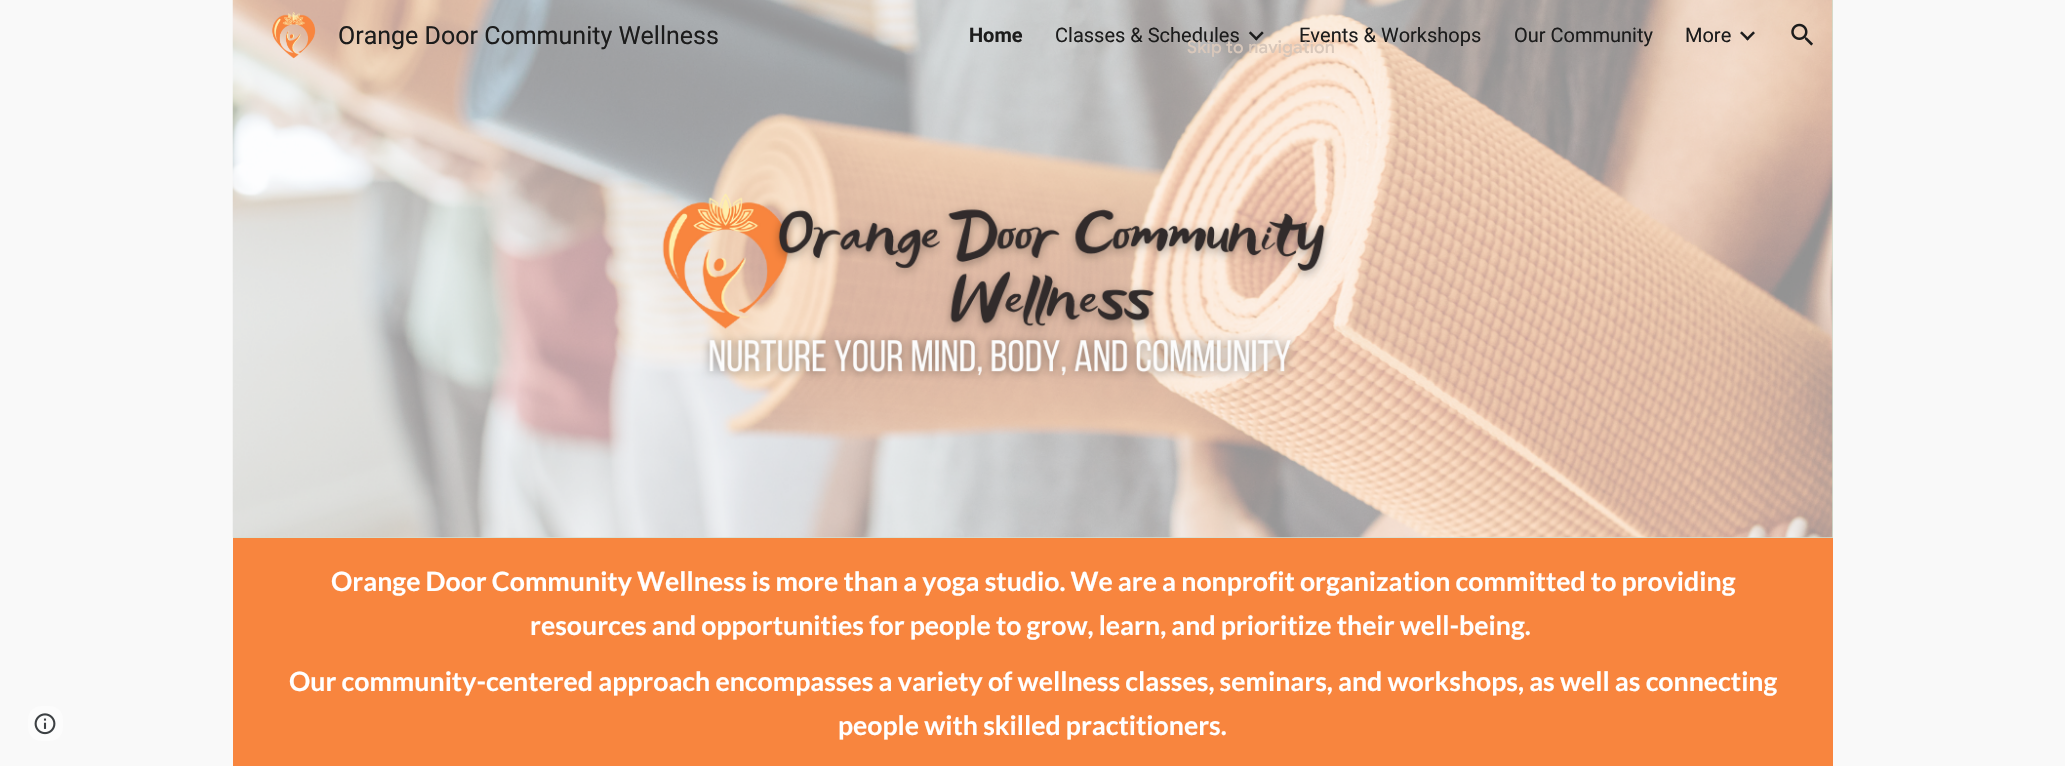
static SkFont makeFont(const char* family, int weight, float size, bool italic = false) {
  SkFontStyle style(weight, SkFontStyle::kNormal_Width,
    italic ? SkFontStyle::kItalic_Slant : SkFontStyle::kUpright_Slant);
  SkFont result(fontMgr->matchFamilyStyle(family, style), size);
  result.setSubpixel(true);
  return result;
}

static void text(SkCanvas* c, const char* s, float x, float y, const SkFont& font, SkColor color) {
  SkPaint ink(SkColor4f::FromColor(color));
  ink.setAntiAlias(true);
  c->drawString(s, x, y, font, ink);
}

static void spacedText(SkCanvas* c, const char* s, float x, float y, const SkFont& font, const SkPaint& ink, float letter, float word) {
  std::vector<SkGlyphID> glyphs(font.countText(s, strlen(s), SkTextEncoding::kUTF8));
  std::vector<float> xs(glyphs.size());
  font.textToGlyphs(s, strlen(s), SkTextEncoding::kUTF8, glyphs);
  font.getXPos(glyphs, xs, x);
  float extra = 0;
  for (size_t i = 0; i < glyphs.size(); i++) {
    xs[i] += extra;
    extra += letter + word * (glyphs[i] == font.unicharToGlyph(' '));
  }
  c->drawTextBlob(SkTextBlob::MakeFromPosHGlyphs(glyphs, xs, y, font), 0, 0, ink);
}

static void box(SkCanvas* c, float l, float t, float r, float b, SkColor color) {
  SkPaint ink(SkColor4f::FromColor(color));
  ink.setAntiAlias(true);
  c->drawRect(SkRect::MakeLTRB(l, t, r, b), ink);
}

static void roundBox(SkCanvas* c, float l, float t, float r, float b, float radius, SkColor color) {
  SkPaint ink(SkColor4f::FromColor(color));
  ink.setAntiAlias(true);
  c->drawRoundRect(SkRect::MakeLTRB(l, t, r, b), radius, radius, ink);
}

static void picture(SkCanvas* c, const char* path, float l, float t, float r, float b) {
  auto image = SkImages::DeferredFromEncodedData(SkData::MakeFromFileName(path));
  c->drawImageRect(image, SkRect::MakeLTRB(l, t, r, b), SkSamplingOptions());
}

void draw(SkCanvas* c) {
  SkPaint paint;
  paint.setAntiAlias(true);
  c->clear(0xfff9f9f9);
  box(c, 233, 0, 1833, 538, 0xffd0e0d2);
  picture(c, "img_06.png", 232, 0, 1833, 538);
  picture(c, "img_01.png", 272, 12, 316, 59);
  SkFont face1 = makeFont("Roboto", 400, 25);
  text(c, "Orange Door Community Wellness", 338, 44, face1, 0xff1c1c1c);
  SkFont face2 = makeFont("Roboto", 700, 20);
  text(c, "Home", 969, 42, face2, 0xff1c1c1c);
  SkFont face3 = makeFont("Roboto", 400, 20);
  text(c, "Classes & Schedules", 1055, 42, face3, 0xff1c1c1c);
  picture(c, "img_02.png", 1248, 31, 1264, 41);
  text(c, "Events & Workshops", 1299, 42, face3, 0xff1c1c1c);
  text(c, "Our Community", 1514, 42, face3, 0xff1c1c1c);
  text(c, "More", 1685, 42, face3, 0xff1c1c1c);
  picture(c, "img_03.png", 1740, 31, 1755, 41);
  picture(c, "img_04.png", 1791, 23, 1813, 46);
  roundBox(c, 28, 706, 63, 741, 13, 0xfffcfcfc);
  picture(c, "img_05.png", 34, 713, 56, 735);
  box(c, 233, 538, 1833, 766, 0xfff8853e);
  SkFont face4 = makeFont("Lato", 700, 26.67f);
  text(c, "Orange Door Community Wellness is more than a yoga studio. We are a nonprofit organization committed to providing", 331, 591, face4, 0xffffffff);
  text(c, "resources and opportunities for people to grow, learn, and prioritize their well-being.", 530, 635, face4, 0xffffffff);
  text(c, "Our community-centered approach encompasses a variety of wellness classes, seminars, and workshops, as well as connecting", 289, 691, face4, 0xffffffff);
  text(c, "people with skilled practitioners.", 838, 735, face4, 0xffffffff);
  SkFont face5 = makeFont("Google Sans", 500, 17.5f);
  paint.setColor(0xffd8c7ba);
  spacedText(c, "Skip to navigation", 1187, 53, face5, paint, 0.2f, 0);
}
